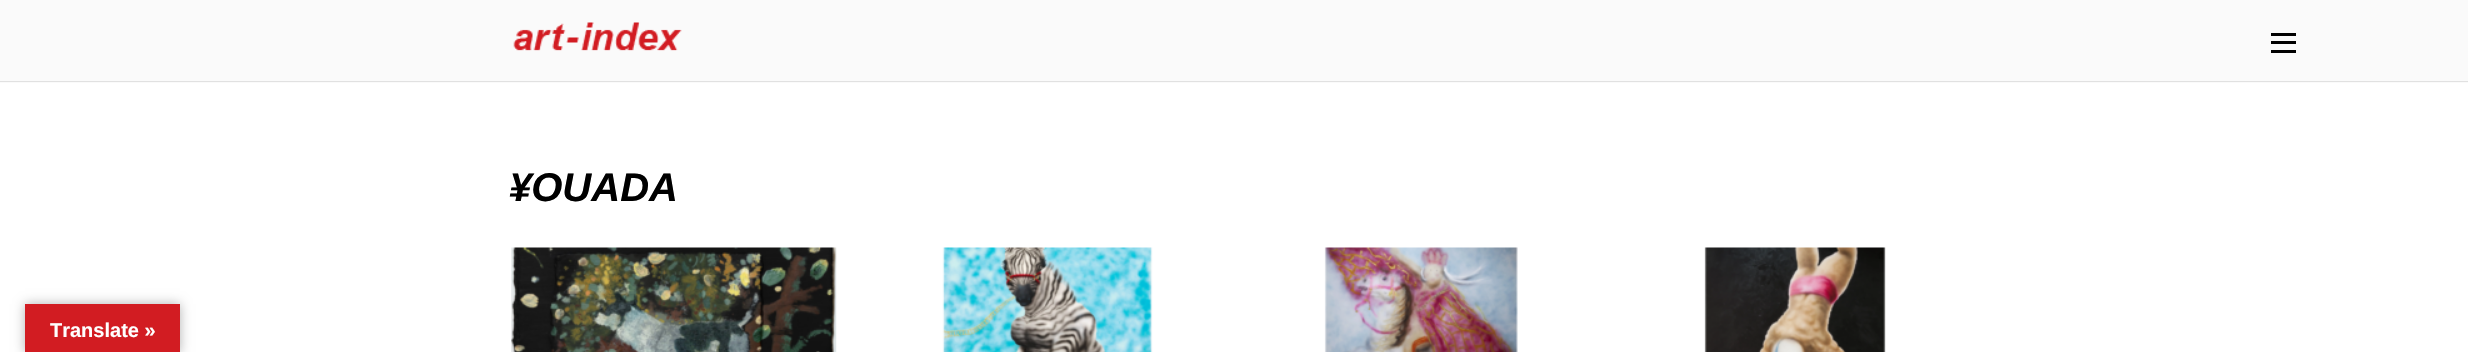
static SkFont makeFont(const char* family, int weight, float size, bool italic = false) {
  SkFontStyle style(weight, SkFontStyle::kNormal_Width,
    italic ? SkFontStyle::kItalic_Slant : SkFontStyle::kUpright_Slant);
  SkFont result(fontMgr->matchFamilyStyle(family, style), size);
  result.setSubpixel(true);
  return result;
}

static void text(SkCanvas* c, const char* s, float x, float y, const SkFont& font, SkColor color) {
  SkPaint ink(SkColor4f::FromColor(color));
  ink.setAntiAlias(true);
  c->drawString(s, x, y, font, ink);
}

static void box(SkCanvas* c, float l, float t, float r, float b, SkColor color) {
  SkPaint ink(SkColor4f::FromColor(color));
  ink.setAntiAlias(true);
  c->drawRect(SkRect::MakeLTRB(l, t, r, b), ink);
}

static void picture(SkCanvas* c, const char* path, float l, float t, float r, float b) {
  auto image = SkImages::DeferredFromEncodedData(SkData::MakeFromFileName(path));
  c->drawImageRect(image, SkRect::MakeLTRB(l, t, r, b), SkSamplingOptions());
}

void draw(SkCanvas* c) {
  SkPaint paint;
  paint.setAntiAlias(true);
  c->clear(0xffffffff);
  box(c, 0, 0, 2468, 83, 0xfffafafa);
  box(c, 0, 81, 2468, 82, 0xffe1e1e1);
  picture(c, "img_01.png", 513, 22, 682, 51);
  box(c, 2271, 50, 2296, 53, 0xff000000);
  box(c, 2271, 33, 2296, 36, 0xff000000);
  box(c, 2271, 41, 2296, 44, 0xff000000);
  SkFont face1 = makeFont("Liberation Sans", 700, 40, true);
  text(c, "¥OUADA", 509, 201, face1, 0xff000000);
  picture(c, "img_02.png", 511, 247, 837, 352);
  picture(c, "img_03.png", 942, 247, 1153, 352);
  picture(c, "img_04.png", 1324, 247, 1518, 352);
  picture(c, "img_05.png", 1704, 247, 1886, 352);
  paint.setColor(0x4d000000);
  paint.setMaskFilter(SkMaskFilter::MakeBlur(kNormal_SkBlurStyle, 5.5f));
  c->drawRect(SkRect::MakeLTRB(25, 304, 180, 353), paint);
  paint.setMaskFilter(nullptr);
  box(c, 25, 304, 180, 352, 0xffd21c22);
  SkFont face2 = makeFont("Liberation Sans", 700, 20);
  text(c, "Translate »", 50, 337, face2, 0xffffffff);
}
